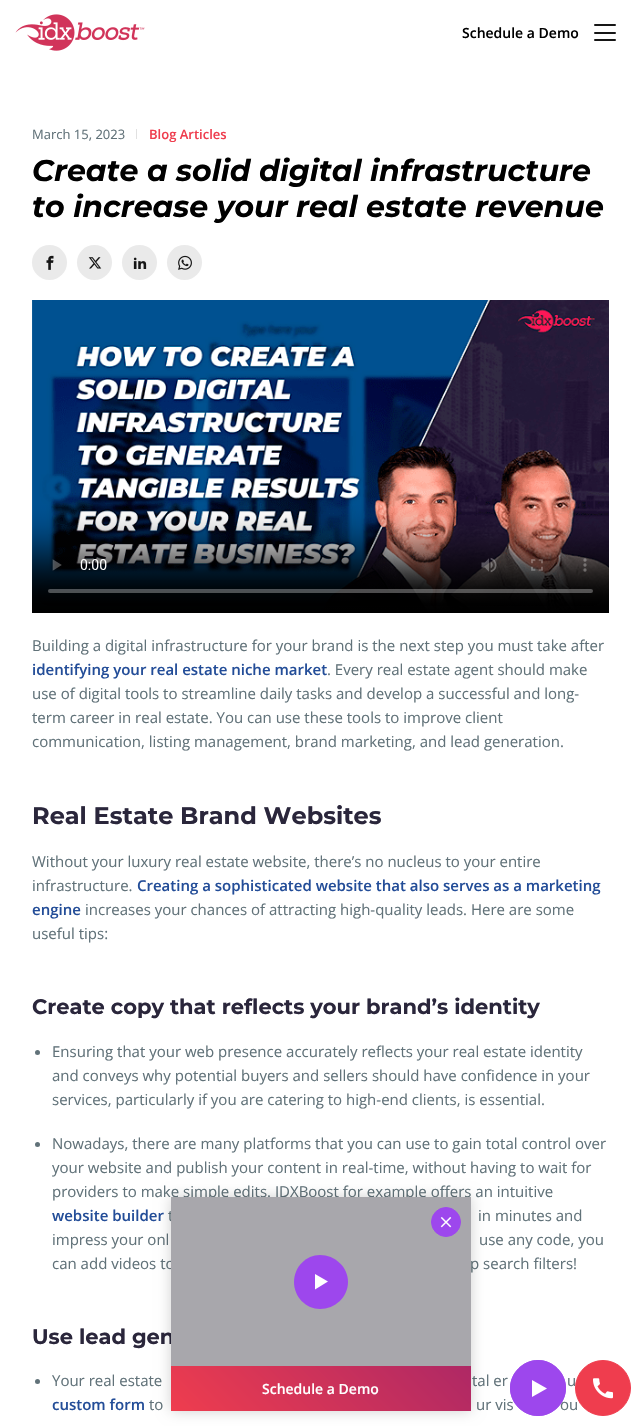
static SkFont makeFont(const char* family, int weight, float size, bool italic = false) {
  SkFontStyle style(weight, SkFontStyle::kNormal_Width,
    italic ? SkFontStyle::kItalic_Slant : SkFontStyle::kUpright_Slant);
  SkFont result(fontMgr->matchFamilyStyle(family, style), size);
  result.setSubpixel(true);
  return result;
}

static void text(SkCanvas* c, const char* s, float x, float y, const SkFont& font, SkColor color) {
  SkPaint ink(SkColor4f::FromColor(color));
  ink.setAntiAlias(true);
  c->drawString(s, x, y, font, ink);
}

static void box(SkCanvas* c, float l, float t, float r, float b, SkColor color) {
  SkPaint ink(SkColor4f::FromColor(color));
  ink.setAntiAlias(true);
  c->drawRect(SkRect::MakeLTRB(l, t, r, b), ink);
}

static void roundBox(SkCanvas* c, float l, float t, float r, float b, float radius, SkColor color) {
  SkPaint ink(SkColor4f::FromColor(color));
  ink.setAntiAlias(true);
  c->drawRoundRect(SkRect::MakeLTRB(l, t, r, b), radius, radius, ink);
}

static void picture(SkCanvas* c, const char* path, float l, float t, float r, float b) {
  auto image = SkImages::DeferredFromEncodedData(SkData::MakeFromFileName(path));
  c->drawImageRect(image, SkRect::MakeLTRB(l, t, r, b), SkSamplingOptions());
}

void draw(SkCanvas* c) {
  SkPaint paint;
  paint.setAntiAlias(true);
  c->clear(0xffffffff);
  picture(c, "img_01.png", 15, 14, 145, 51);
  SkFont face1 = makeFont("Open Sans", 600, 14);
  text(c, "Schedule a Demo", 462, 38, face1, 0xff000000);
  roundBox(c, 594, 24, 616, 26, 1, 0xff161616);
  roundBox(c, 594, 32, 616, 34, 1, 0xff161616);
  roundBox(c, 594, 39, 616, 41, 1, 0xff161616);
  SkFont face2 = makeFont("Open Sans", 400, 13);
  text(c, "March 15, 2023", 32, 139, face2, 0xff617279);
  box(c, 136, 129, 137, 139, 0xffe1e1e1);
  SkFont face3 = makeFont("Open Sans", 600, 13);
  text(c, "Blog Articles", 149, 139, face3, 0xffef3d4e);
  SkFont face4 = makeFont("Montserrat", 700, 30, true);
  text(c, "Create a solid digital infrastructure", 32, 181, face4, 0xff000000);
  text(c, "to increase your real estate revenue", 32, 217, face4, 0xff000000);
  paint.setColor(0xffeaeaea);
  c->drawCircle(49.5f, 262.5f, 17.5f, paint);
  picture(c, "img_02.png", 46, 255, 54, 270);
  c->drawCircle(94.5f, 262.5f, 17.5f, paint);
  picture(c, "img_03.png", 88, 257, 102, 269);
  c->drawCircle(139.5f, 262.5f, 17.5f, paint);
  picture(c, "img_04.png", 133, 257, 147, 269);
  c->drawCircle(184.5f, 262.5f, 17.5f, paint);
  picture(c, "img_05.png", 178, 255, 192, 270);
  picture(c, "img_06.png", 32, 300, 609, 613);
  SkFont face5 = makeFont("Open Sans", 400, 15);
  text(c, "Building a digital infrastructure for your brand is the next step you must take after", 32, 651, face5, 0xff617279);
  SkFont face6 = makeFont("Open Sans", 600, 15);
  text(c, "identifying your real estate niche market", 32, 675, face6, 0xff234d98);
  text(c, ". Every real estate agent should make", 327, 675, face5, 0xff617279);
  text(c, "use of digital tools to streamline daily tasks and develop a successful and long-", 32, 699, face5, 0xff617279);
  text(c, "term career in real estate. You can use these tools to improve client", 32, 723, face5, 0xff617279);
  text(c, "communication, listing management, brand marketing, and lead generation.", 32, 747, face5, 0xff617279);
  SkFont face7 = makeFont("Montserrat", 700, 24);
  text(c, "Real Estate Brand Websites", 32, 824, face7, 0xff2a263b);
  text(c, "Without your luxury real estate website, there’s no nucleus to your entire", 32, 867, face5, 0xff617279);
  text(c, "infrastructure.", 32, 891, face5, 0xff617279);
  text(c, "Creating a sophisticated website that also serves as a marketing", 137, 891, face6, 0xff234d98);
  text(c, "engine", 32, 915, face6, 0xff234d98);
  text(c, "increases your chances of attracting high-quality leads. Here are some", 85, 915, face5, 0xff617279);
  text(c, "useful tips:", 32, 939, face5, 0xff617279);
  SkFont face8 = makeFont("Montserrat", 700, 21);
  text(c, "Create copy that reflects your brand’s identity", 32, 1014, face8, 0xff2a263b);
  paint.setColor(0xff617279);
  c->drawCircle(37.5f, 1052.5f, 2.5f, paint);
  text(c, "Ensuring that your web presence accurately reflects your real estate identity", 52, 1057, face5, 0xff617279);
  text(c, "and conveys why potential buyers and sellers should have confidence in your", 52, 1081, face5, 0xff617279);
  text(c, "services, particularly if you are catering to high-end clients, is essential.", 52, 1105, face5, 0xff617279);
  c->drawCircle(37.5f, 1144.5f, 2.5f, paint);
  text(c, "Nowadays, there are many platforms that you can use to gain total control over", 52, 1149, face5, 0xff617279);
  text(c, "your website and publish your content in real-time, without having to wait for", 52, 1173, face5, 0xff617279);
  text(c, "providers to make simple edits. IDXBoost for example offers an intuitive", 52, 1197, face5, 0xff617279);
  text(c, "website builder", 52, 1221, face6, 0xff234d98);
  text(c, "t", 168, 1221, face5, 0xff617279);
  text(c, "in minutes and", 478, 1221, face5, 0xff617279);
  text(c, "impress your onl", 52, 1245, face5, 0xff617279);
  text(c, "use any code, you", 479, 1245, face5, 0xff617279);
  text(c, "can add videos to", 52, 1269, face5, 0xff617279);
  text(c, "p search filters!", 470, 1269, face5, 0xff617279);
  text(c, "Use lead gen", 32, 1344, face8, 0xff2a263b);
  c->drawCircle(37.5f, 1381.5f, 2.5f, paint);
  text(c, "Your real estate", 52, 1386, face5, 0xff617279);
  text(c, "tal er", 472, 1386, face5, 0xff617279);
  text(c, "u", 567, 1386, face5, 0xff617279);
  text(c, "custom form", 52, 1410, face6, 0xff234d98);
  text(c, "to", 149, 1410, face5, 0xff617279);
  text(c, "ur vis", 476, 1410, face5, 0xff617279);
  text(c, "ou", 560, 1410, face5, 0xff617279);
  paint.setColor(0x2e000000);
  paint.setMaskFilter(SkMaskFilter::MakeBlur(kNormal_SkBlurStyle, 6.5f));
  c->drawRect(SkRect::MakeLTRB(171, 1197, 471, 1411), paint);
  paint.setMaskFilter(nullptr);
  box(c, 171, 1197, 471, 1366, 0xffa8a7ac);
  paint.setColor(0xff9d47ed);
  c->drawCircle(446, 1222, 14.5f, paint);
  paint.setStyle(SkPaint::kStroke_Style);
  paint.setStrokeWidth(1);
  c->drawCircle(446, 1222, 14.5f, paint);
  picture(c, "img_07.png", 440, 1217, 452, 1228);
  paint.setStyle(SkPaint::kFill_Style);
  c->drawPath(SkPathBuilder().moveTo(348, 1282).cubicTo(348, 1297, 335, 1309, 320, 1309).cubicTo(306, 1309, 294, 1297, 294, 1282).cubicTo(294, 1267, 306, 1255, 320, 1255).cubicTo(335, 1255, 348, 1267, 348, 1282).close().detach(), paint);
  paint.setColor(0xffffffff);
  c->drawPath(SkPathBuilder().moveTo(328, 1281.5f).lineTo(315, 1274).lineTo(315, 1289.5f).close().detach(), paint);
  {
    const SkColor colors[] = {0xffef3d4e, 0xffae2865};
    const float stops[] = {0, 1};
    const SkPoint ends[] = {{235, 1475}, {407, 1302}};
    paint.setShader(SkGradientShader::MakeLinear(ends, colors, stops, 2, SkTileMode::kClamp));
    paint.setAlpha(255);
  }
  c->drawRect(SkRect::MakeLTRB(171, 1366, 471, 1411), paint);
  text(c, "Schedule a Demo", 262, 1394, face1, 0xffffffff);
  paint.setShader(nullptr);
  paint.setColor(0xff9d47ed);
  c->drawPath(SkPathBuilder().moveTo(566, 1388).cubicTo(566, 1403, 553, 1416, 538, 1416).cubicTo(523, 1416, 510, 1403, 510, 1388).cubicTo(510, 1373, 523, 1360, 538, 1360).cubicTo(553, 1360, 566, 1373, 566, 1388).close().detach(), paint);
  paint.setStyle(SkPaint::kStroke_Style);
  c->drawPath(SkPathBuilder().moveTo(565.5f, 1388).cubicTo(565.5f, 1403, 553, 1415.5f, 538, 1415.5f).cubicTo(523, 1415.5f, 510.5f, 1403, 510.5f, 1388).cubicTo(510.5f, 1373, 523, 1360.5f, 538, 1360.5f).cubicTo(553, 1360.5f, 565.5f, 1373, 565.5f, 1388).close().detach(), paint);
  paint.setStyle(SkPaint::kFill_Style);
  paint.setColor(0xffffffff);
  c->drawPath(SkPathBuilder().moveTo(547, 1388.5f).lineTo(532, 1380).lineTo(532, 1397).close().detach(), paint);
  paint.setColor(0xffef3d4e);
  c->drawCircle(603, 1388, 27.5f, paint);
  paint.setStyle(SkPaint::kStroke_Style);
  c->drawCircle(603, 1388, 27.5f, paint);
  picture(c, "img_08.png", 593, 1378, 613, 1399);
}
